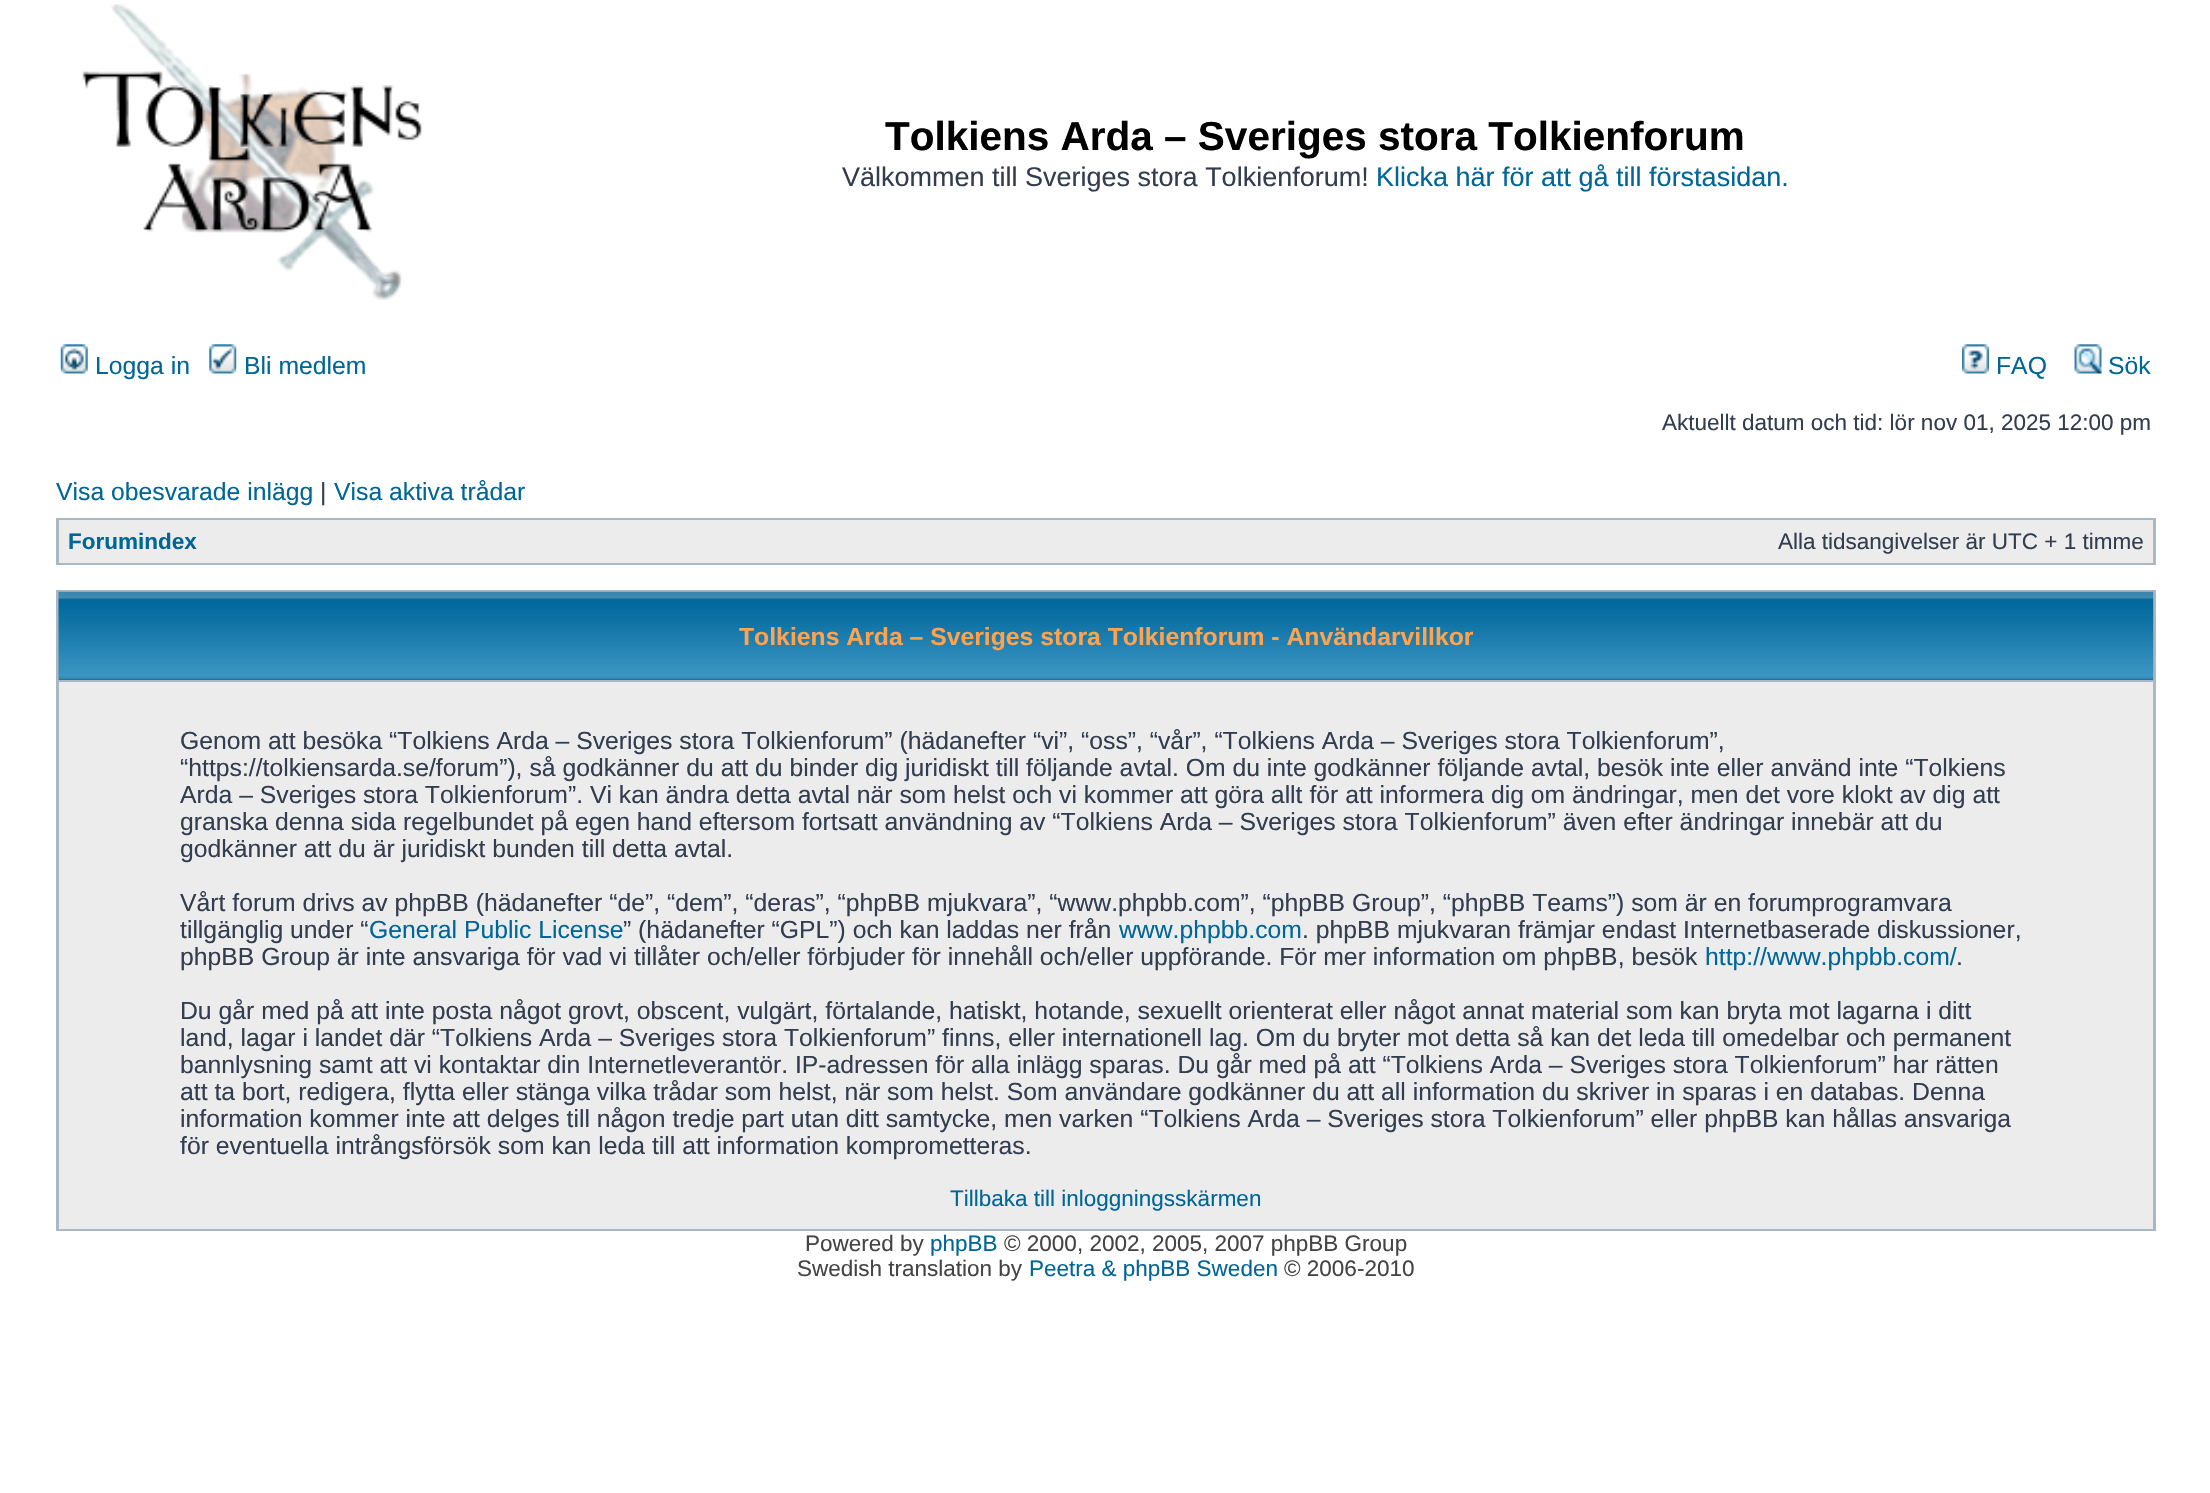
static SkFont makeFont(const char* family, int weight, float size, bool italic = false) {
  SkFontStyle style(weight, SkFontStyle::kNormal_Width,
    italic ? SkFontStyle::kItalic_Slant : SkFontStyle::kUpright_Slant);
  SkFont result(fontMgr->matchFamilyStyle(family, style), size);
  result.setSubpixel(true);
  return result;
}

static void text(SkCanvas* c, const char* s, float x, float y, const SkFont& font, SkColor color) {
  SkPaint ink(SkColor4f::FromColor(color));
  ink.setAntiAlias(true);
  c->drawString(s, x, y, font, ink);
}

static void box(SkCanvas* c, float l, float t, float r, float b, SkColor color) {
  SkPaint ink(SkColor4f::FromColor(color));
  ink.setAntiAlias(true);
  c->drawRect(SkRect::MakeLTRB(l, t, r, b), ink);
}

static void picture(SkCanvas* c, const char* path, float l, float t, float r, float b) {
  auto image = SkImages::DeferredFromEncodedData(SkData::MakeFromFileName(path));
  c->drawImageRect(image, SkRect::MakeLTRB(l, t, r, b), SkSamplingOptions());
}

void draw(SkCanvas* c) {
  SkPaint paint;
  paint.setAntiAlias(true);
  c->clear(0xffffffff);
  picture(c, "img_01.png", 82, 4, 422, 300);
  SkFont face1 = makeFont("Liberation Sans", 700, 40.5f);
  text(c, "Tolkiens Arda – Sveriges stora Tolkienforum", 885, 150, face1, 0xff000000);
  SkFont face2 = makeFont("Liberation Sans", 400, 27);
  text(c, "Välkommen till Sveriges stora Tolkienforum!", 842, 186, face2, 0xff323d4f);
  text(c, "Klicka här för att gå till förstasidan.", 1376, 186, face2, 0xff006597);
  picture(c, "img_02.png", 60, 344, 88, 374);
  SkFont face3 = makeFont("Liberation Sans", 400, 24.75f);
  text(c, "Logga in", 95, 374, face3, 0xff006597);
  picture(c, "img_03.png", 209, 344, 237, 374);
  text(c, "Bli medlem", 244, 374, face3, 0xff006597);
  picture(c, "img_04.png", 1962, 344, 1989, 374);
  text(c, "FAQ", 1996, 374, face3, 0xff006597);
  picture(c, "img_05.png", 2074, 344, 2102, 374);
  text(c, "Sök", 2108, 374, face3, 0xff006597);
  SkFont face4 = makeFont("Liberation Sans", 400, 22.5f);
  text(c, "Aktuellt datum och tid: lör nov 01, 2025 12:00 pm", 1662, 430, face4, 0xff323d4f);
  text(c, "Visa obesvarade inlägg", 56, 500, face3, 0xff006597);
  text(c, "|", 320, 500, face3, 0xff323d4f);
  text(c, "Visa aktiva trådar", 334, 500, face3, 0xff006597);
  box(c, 56, 518, 2156, 565, 0xffa9b8c2);
  box(c, 59, 520, 2153, 563, 0xffececec);
  SkFont face5 = makeFont("Liberation Sans", 700, 22.5f);
  text(c, "Forumindex", 68, 549, face5, 0xff006597);
  text(c, "Alla tidsangivelser är UTC + 1 timme", 1778, 549, face4, 0xff323d4f);
  box(c, 56, 590, 2156, 1231, 0xffa9b8c2);
  box(c, 59, 679, 2153, 680, 0xff006699);
  picture(c, "img_06.png", 58, 591, 2154, 680);
  SkFont face6 = makeFont("Liberation Sans", 700, 24.75f);
  text(c, "Tolkiens Arda – Sveriges stora Tolkienforum - Användarvillkor", 739, 645, face6, 0xffffa34f);
  box(c, 59, 682, 2153, 1229, 0xffececec);
  text(c, "Genom att besöka “Tolkiens Arda – Sveriges stora Tolkienforum” (hädanefter “vi”, “oss”, “vår”, “Tolkiens Arda – Sveriges stora Tolkienforum”,", 180, 749, face3, 0xff323d4f);
  text(c, "“https://tolkiensarda.se/forum”), så godkänner du att du binder dig juridiskt till följande avtal. Om du inte godkänner följande avtal, besök inte eller använd inte “Tolkiens", 180, 776, face3, 0xff323d4f);
  text(c, "Arda – Sveriges stora Tolkienforum”. Vi kan ändra detta avtal när som helst och vi kommer att göra allt för att informera dig om ändringar, men det vore klokt av dig att", 180, 803, face3, 0xff323d4f);
  text(c, "granska denna sida regelbundet på egen hand eftersom fortsatt användning av “Tolkiens Arda – Sveriges stora Tolkienforum” även efter ändringar innebär att du", 180, 830, face3, 0xff323d4f);
  text(c, "godkänner att du är juridiskt bunden till detta avtal.", 180, 857, face3, 0xff323d4f);
  text(c, "Vårt forum drivs av phpBB (hädanefter “de”, “dem”, “deras”, “phpBB mjukvara”, “www.phpbb.com”, “phpBB Group”, “phpBB Teams”) som är en forumprogramvara", 180, 911, face3, 0xff323d4f);
  text(c, "tillgänglig under “", 180, 938, face3, 0xff323d4f);
  text(c, "General Public License", 369, 938, face3, 0xff006597);
  text(c, "” (hädanefter “GPL”) och kan laddas ner från", 623, 938, face3, 0xff323d4f);
  text(c, "www.phpbb.com", 1119, 938, face3, 0xff006597);
  text(c, ". phpBB mjukvaran främjar endast Internetbaserade diskussioner,", 1302, 938, face3, 0xff323d4f);
  text(c, "phpBB Group är inte ansvariga för vad vi tillåter och/eller förbjuder för innehåll och/eller uppförande. För mer information om phpBB, besök", 180, 965, face3, 0xff323d4f);
  text(c, "http://www.phpbb.com/", 1705, 965, face3, 0xff006597);
  text(c, ".", 1956, 965, face3, 0xff323d4f);
  text(c, "Du går med på att inte posta något grovt, obscent, vulgärt, förtalande, hatiskt, hotande, sexuellt orienterat eller något annat material som kan bryta mot lagarna i ditt", 180, 1019, face3, 0xff323d4f);
  text(c, "land, lagar i landet där “Tolkiens Arda – Sveriges stora Tolkienforum” finns, eller internationell lag. Om du bryter mot detta så kan det leda till omedelbar och permanent", 180, 1046, face3, 0xff323d4f);
  text(c, "bannlysning samt att vi kontaktar din Internetleverantör. IP-adressen för alla inlägg sparas. Du går med på att “Tolkiens Arda – Sveriges stora Tolkienforum” har rätten", 180, 1073, face3, 0xff323d4f);
  text(c, "att ta bort, redigera, flytta eller stänga vilka trådar som helst, när som helst. Som användare godkänner du att all information du skriver in sparas i en databas. Denna", 180, 1100, face3, 0xff323d4f);
  text(c, "information kommer inte att delges till någon tredje part utan ditt samtycke, men varken “Tolkiens Arda – Sveriges stora Tolkienforum” eller phpBB kan hållas ansvariga", 180, 1127, face3, 0xff323d4f);
  text(c, "för eventuella intrångsförsök som kan leda till att information komprometteras.", 180, 1154, face3, 0xff323d4f);
  text(c, "Tillbaka till inloggningsskärmen", 950, 1206, face4, 0xff006597);
  text(c, "Powered by", 805, 1251, face4, 0xff444444);
  text(c, "phpBB", 930, 1251, face4, 0xff006597);
  text(c, "© 2000, 2002, 2005, 2007 phpBB Group", 1004, 1251, face4, 0xff444444);
  text(c, "Swedish translation by", 797, 1276, face4, 0xff444444);
  text(c, "Peetra & phpBB Sweden", 1029, 1276, face4, 0xff006597);
  text(c, "© 2006-2010", 1284, 1276, face4, 0xff444444);
}
